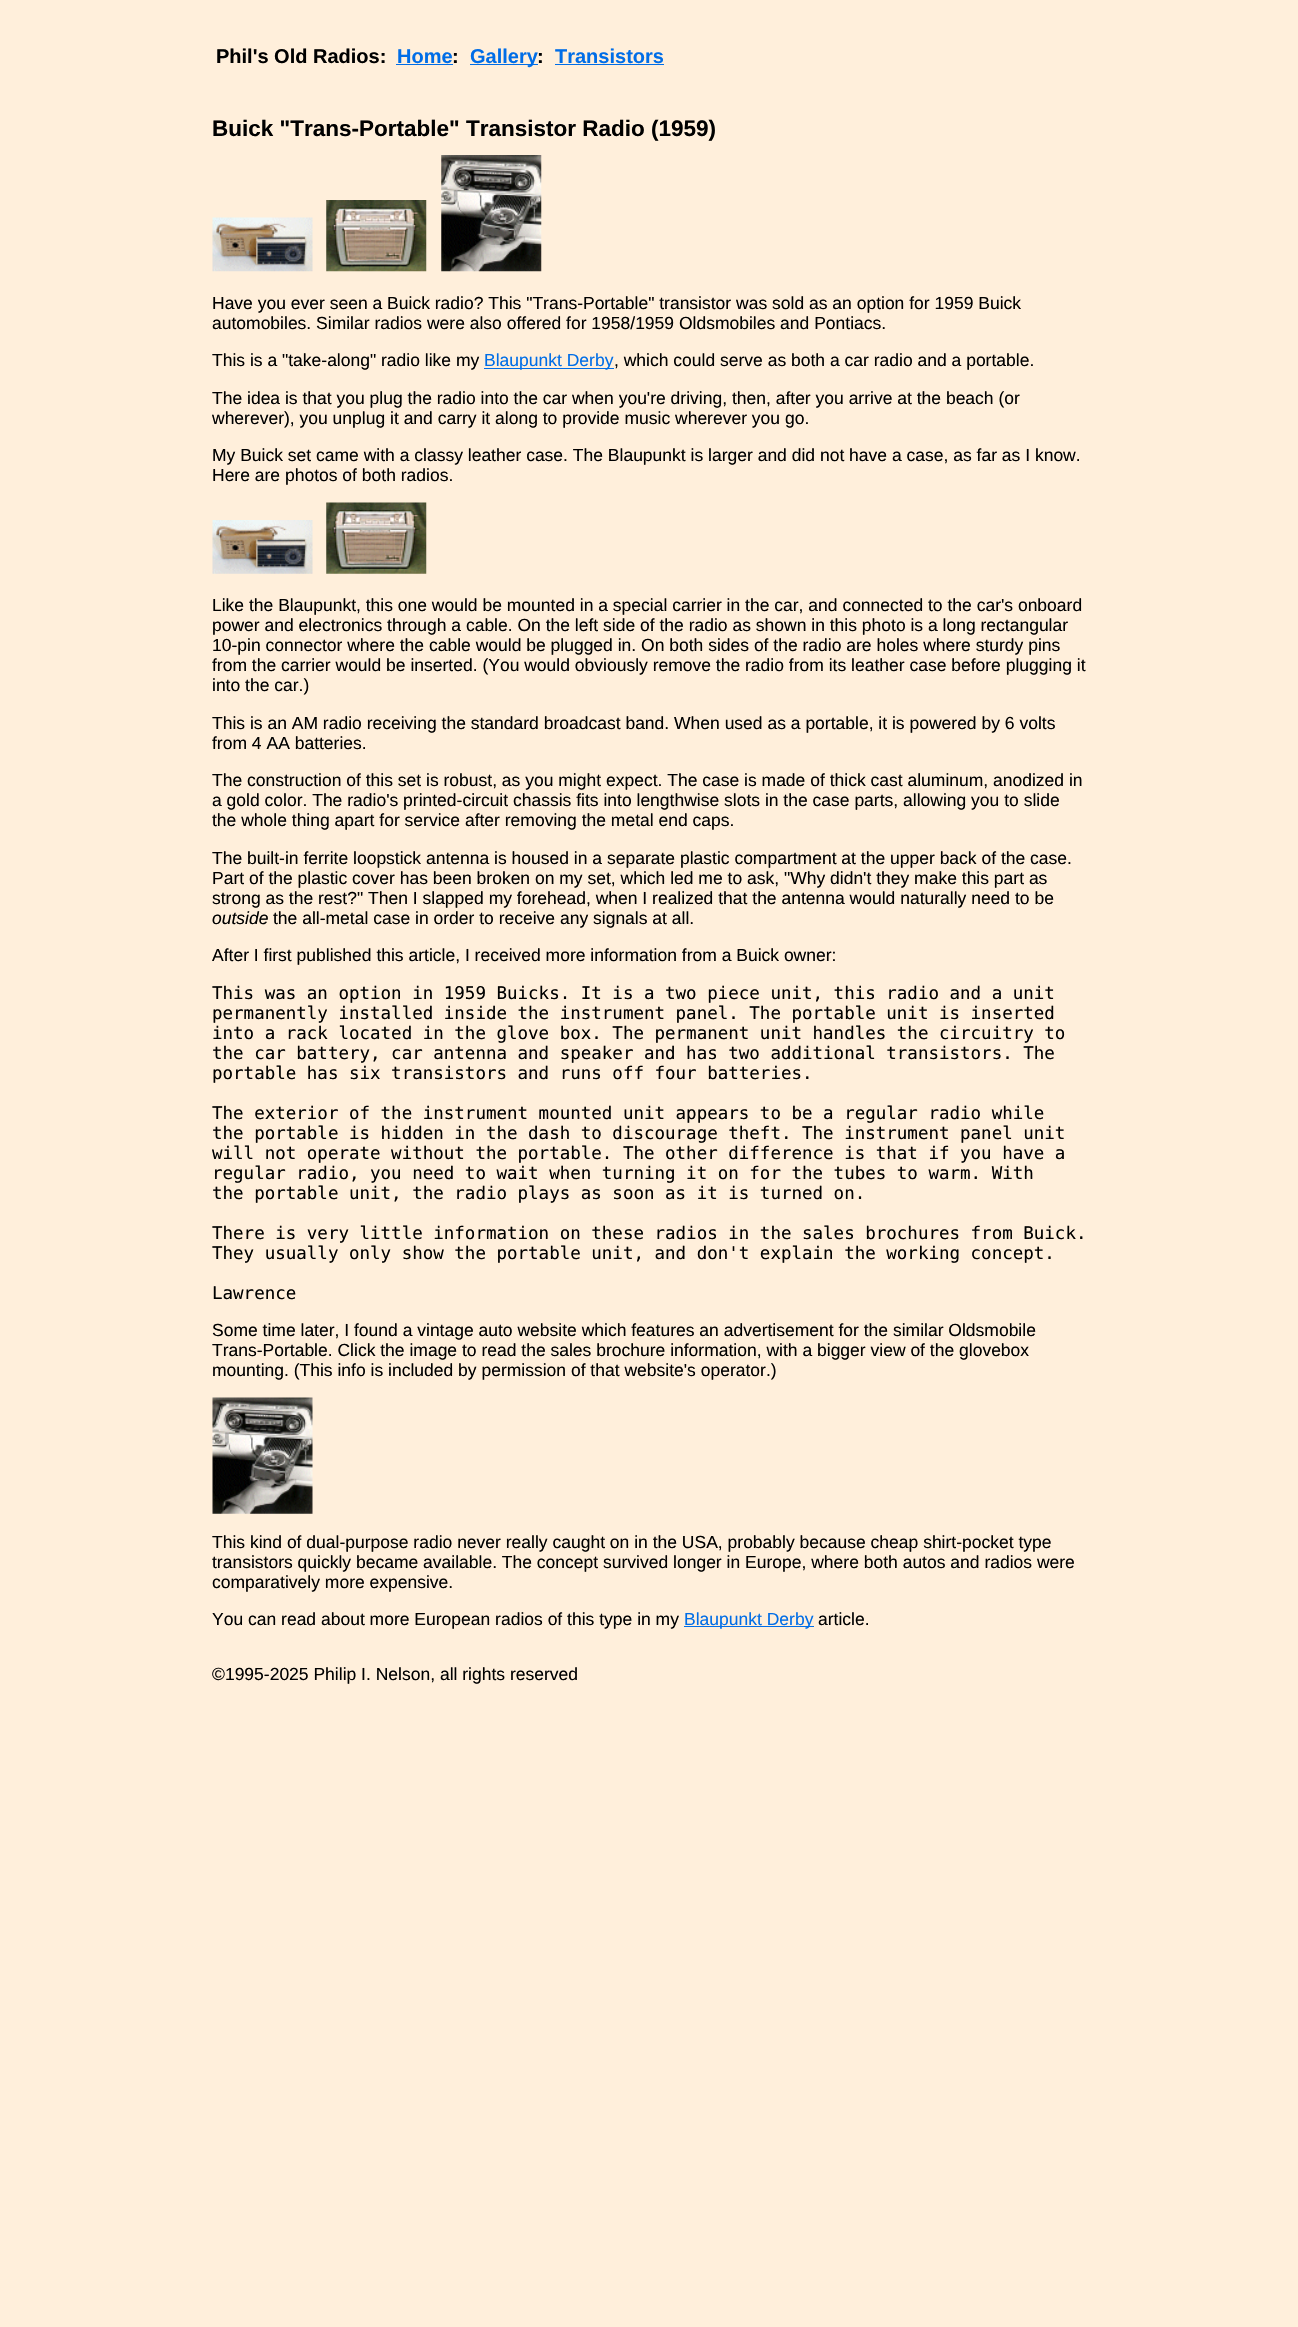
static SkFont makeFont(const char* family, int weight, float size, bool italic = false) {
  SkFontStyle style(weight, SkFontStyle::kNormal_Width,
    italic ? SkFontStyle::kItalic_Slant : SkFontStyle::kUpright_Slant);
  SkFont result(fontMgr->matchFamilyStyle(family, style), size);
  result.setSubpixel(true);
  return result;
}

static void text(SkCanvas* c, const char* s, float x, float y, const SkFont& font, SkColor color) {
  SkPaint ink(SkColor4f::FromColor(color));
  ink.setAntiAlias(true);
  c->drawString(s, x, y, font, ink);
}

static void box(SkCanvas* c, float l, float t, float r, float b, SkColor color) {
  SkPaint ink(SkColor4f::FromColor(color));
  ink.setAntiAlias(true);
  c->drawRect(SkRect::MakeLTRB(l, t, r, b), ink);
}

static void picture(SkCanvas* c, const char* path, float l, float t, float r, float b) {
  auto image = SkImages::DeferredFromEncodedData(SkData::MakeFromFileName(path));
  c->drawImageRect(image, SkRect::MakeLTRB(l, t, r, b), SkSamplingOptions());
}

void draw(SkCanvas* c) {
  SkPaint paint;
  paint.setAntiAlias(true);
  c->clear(0xffffefdb);
  SkFont face1 = makeFont("Liberation Sans", 700, 20);
  text(c, "Phil's Old Radios:", 216, 63, face1, 0xff000000);
  text(c, "Home", 397, 63, face1, 0xff006de7);
  box(c, 396, 64, 453, 65, 0xff006de7);
  text(c, ":", 452, 63, face1, 0xff000000);
  box(c, 470, 64, 538, 65, 0xff006de7);
  text(c, "Gallery", 470, 63, face1, 0xff006de7);
  text(c, ":", 537, 63, face1, 0xff000000);
  text(c, "Transistors", 555, 63, face1, 0xff006de7);
  box(c, 555, 64, 664, 65, 0xff006de7);
  SkFont face2 = makeFont("Liberation Sans", 700, 22.5f);
  text(c, "Buick \"Trans-Portable\" Transistor Radio (1959)", 212, 136, face2, 0xff000000);
  picture(c, "img_01.png", 212, 217, 313, 272);
  picture(c, "img_02.png", 326, 200, 427, 272);
  picture(c, "img_03.png", 441, 155, 542, 272);
  SkFont face3 = makeFont("Liberation Sans", 400, 17.5f);
  text(c, "Have you ever seen a Buick radio? This \"Trans-Portable\" transistor was sold as an option for 1959 Buick", 212, 309, face3, 0xff000000);
  text(c, "automobiles. Similar radios were also offered for 1958/1959 Oldsmobiles and Pontiacs.", 212, 329, face3, 0xff000000);
  text(c, "This is a \"take-along\" radio like my", 212, 366, face3, 0xff000000);
  box(c, 484, 368, 614, 369, 0xff006de7);
  text(c, "Blaupunkt Derby", 484, 366, face3, 0xff006de7);
  text(c, ", which could serve as both a car radio and a portable.", 614, 366, face3, 0xff000000);
  text(c, "The idea is that you plug the radio into the car when you're driving, then, after you arrive at the beach (or", 212, 404, face3, 0xff000000);
  text(c, "wherever), you unplug it and carry it along to provide music wherever you go.", 212, 424, face3, 0xff000000);
  text(c, "My Buick set came with a classy leather case. The Blaupunkt is larger and did not have a case, as far as I know.", 212, 461, face3, 0xff000000);
  text(c, "Here are photos of both radios.", 212, 481, face3, 0xff000000);
  picture(c, "img_04.png", 212, 520, 313, 574);
  picture(c, "img_05.png", 326, 502, 427, 574);
  text(c, "Like the Blaupunkt, this one would be mounted in a special carrier in the car, and connected to the car's onboard", 212, 611, face3, 0xff000000);
  text(c, "power and electronics through a cable. On the left side of the radio as shown in this photo is a long rectangular", 212, 631, face3, 0xff000000);
  text(c, "10-pin connector where the cable would be plugged in. On both sides of the radio are holes where sturdy pins", 212, 651, face3, 0xff000000);
  text(c, "from the carrier would be inserted. (You would obviously remove the radio from its leather case before plugging it", 212, 671, face3, 0xff000000);
  text(c, "into the car.)", 212, 691, face3, 0xff000000);
  text(c, "This is an AM radio receiving the standard broadcast band. When used as a portable, it is powered by 6 volts", 212, 729, face3, 0xff000000);
  text(c, "from 4 AA batteries.", 212, 749, face3, 0xff000000);
  text(c, "The construction of this set is robust, as you might expect. The case is made of thick cast aluminum, anodized in", 212, 786, face3, 0xff000000);
  text(c, "a gold color. The radio's printed-circuit chassis fits into lengthwise slots in the case parts, allowing you to slide", 212, 806, face3, 0xff000000);
  text(c, "the whole thing apart for service after removing the metal end caps.", 212, 826, face3, 0xff000000);
  text(c, "The built-in ferrite loopstick antenna is housed in a separate plastic compartment at the upper back of the case.", 212, 864, face3, 0xff000000);
  text(c, "Part of the plastic cover has been broken on my set, which led me to ask, \"Why didn't they make this part as", 212, 884, face3, 0xff000000);
  text(c, "strong as the rest?\" Then I slapped my forehead, when I realized that the antenna would naturally need to be", 212, 904, face3, 0xff000000);
  SkFont face4 = makeFont("Liberation Sans", 400, 17.5f, true);
  text(c, "outside", 212, 924, face4, 0xff000000);
  text(c, "the all-metal case in order to receive any signals at all.", 273, 924, face3, 0xff000000);
  text(c, "After I first published this article, I received more information from a Buick owner:", 212, 961, face3, 0xff000000);
  SkFont face5 = makeFont("DejaVu Sans Mono", 400, 17.5f);
  text(c, "This was an option in 1959 Buicks. It is a two piece unit, this radio and a unit", 212, 999, face5, 0xff000000);
  text(c, "permanently installed inside the instrument panel. The portable unit is inserted", 212, 1019, face5, 0xff000000);
  text(c, "into a rack located in the glove box. The permanent unit handles the circuitry to", 212, 1039, face5, 0xff000000);
  text(c, "the car battery, car antenna and speaker and has two additional transistors. The", 212, 1059, face5, 0xff000000);
  text(c, "portable has six transistors and runs off four batteries.", 212, 1079, face5, 0xff000000);
  text(c, "The exterior of the instrument mounted unit appears to be a regular radio while", 212, 1119, face5, 0xff000000);
  text(c, "the portable is hidden in the dash to discourage theft. The instrument panel unit", 212, 1139, face5, 0xff000000);
  text(c, "will not operate without the portable. The other difference is that if you have a", 212, 1159, face5, 0xff000000);
  text(c, "regular radio, you need to wait when turning it on for the tubes to warm. With", 212, 1179, face5, 0xff000000);
  text(c, "the portable unit, the radio plays as soon as it is turned on.", 212, 1199, face5, 0xff000000);
  text(c, "There is very little information on these radios in the sales brochures from Buick.", 212, 1239, face5, 0xff000000);
  text(c, "They usually only show the portable unit, and don't explain the working concept.", 212, 1259, face5, 0xff000000);
  text(c, "Lawrence", 212, 1299, face5, 0xff000000);
  text(c, "Some time later, I found a vintage auto website which features an advertisement for the similar Oldsmobile", 212, 1336, face3, 0xff000000);
  text(c, "Trans-Portable. Click the image to read the sales brochure information, with a bigger view of the glovebox", 212, 1356, face3, 0xff000000);
  text(c, "mounting. (This info is included by permission of that website's operator.)", 212, 1376, face3, 0xff000000);
  picture(c, "img_06.png", 212, 1397, 313, 1514);
  text(c, "This kind of dual-purpose radio never really caught on in the USA, probably because cheap shirt-pocket type", 212, 1548, face3, 0xff000000);
  text(c, "transistors quickly became available. The concept survived longer in Europe, where both autos and radios were", 212, 1568, face3, 0xff000000);
  text(c, "comparatively more expensive.", 212, 1588, face3, 0xff000000);
  text(c, "You can read about more European radios of this type in my", 212, 1625, face3, 0xff000000);
  box(c, 684, 1626, 814, 1627, 0xff006de7);
  text(c, "Blaupunkt Derby", 684, 1625, face3, 0xff006de7);
  text(c, "article.", 818, 1625, face3, 0xff000000);
  text(c, "©1995-2025 Philip I. Nelson, all rights reserved", 212, 1680, face3, 0xff000000);
}
